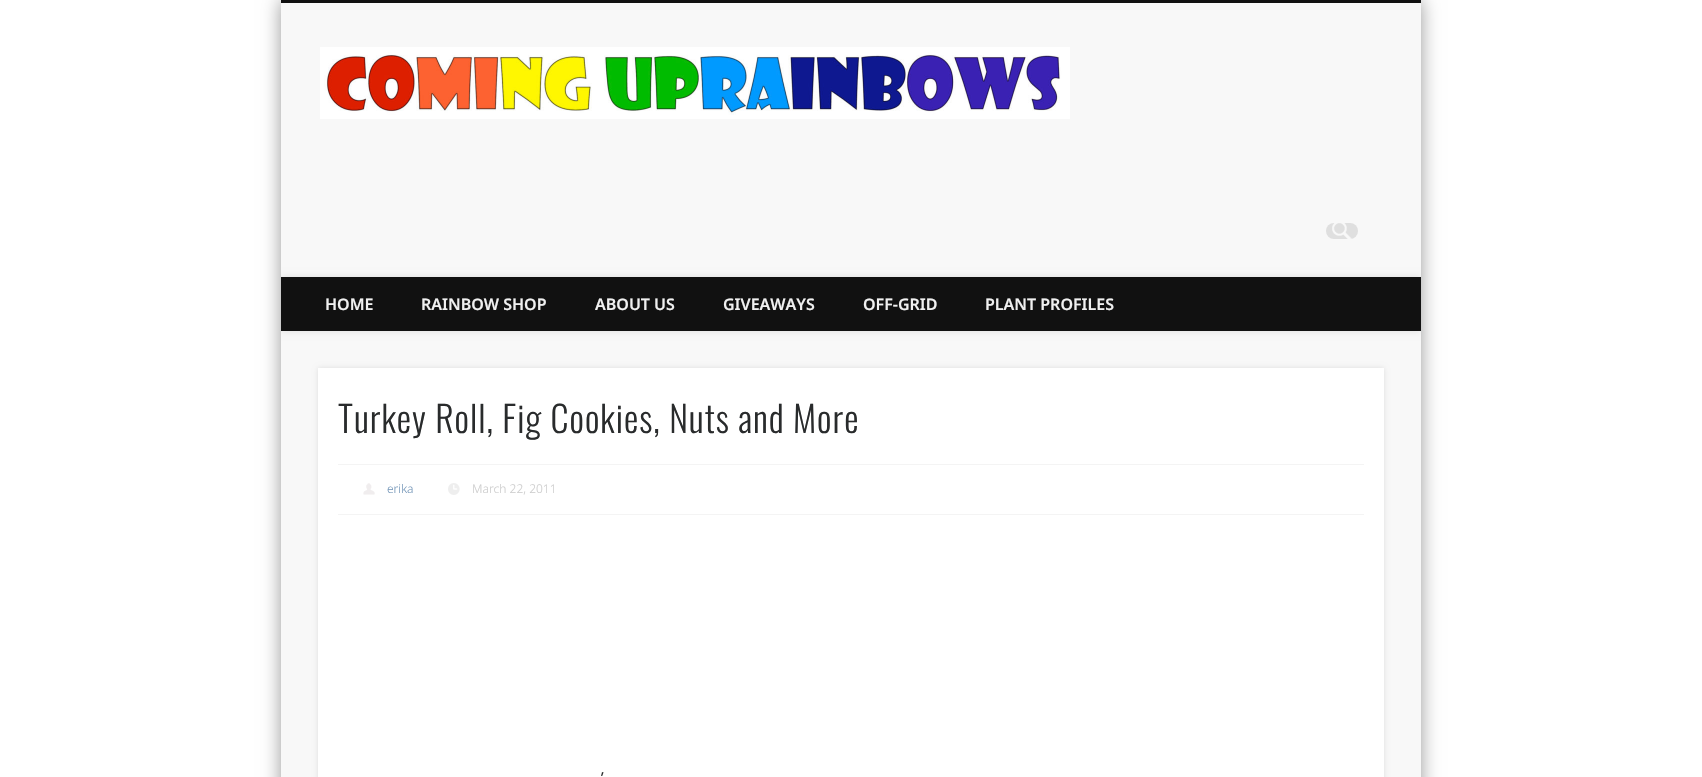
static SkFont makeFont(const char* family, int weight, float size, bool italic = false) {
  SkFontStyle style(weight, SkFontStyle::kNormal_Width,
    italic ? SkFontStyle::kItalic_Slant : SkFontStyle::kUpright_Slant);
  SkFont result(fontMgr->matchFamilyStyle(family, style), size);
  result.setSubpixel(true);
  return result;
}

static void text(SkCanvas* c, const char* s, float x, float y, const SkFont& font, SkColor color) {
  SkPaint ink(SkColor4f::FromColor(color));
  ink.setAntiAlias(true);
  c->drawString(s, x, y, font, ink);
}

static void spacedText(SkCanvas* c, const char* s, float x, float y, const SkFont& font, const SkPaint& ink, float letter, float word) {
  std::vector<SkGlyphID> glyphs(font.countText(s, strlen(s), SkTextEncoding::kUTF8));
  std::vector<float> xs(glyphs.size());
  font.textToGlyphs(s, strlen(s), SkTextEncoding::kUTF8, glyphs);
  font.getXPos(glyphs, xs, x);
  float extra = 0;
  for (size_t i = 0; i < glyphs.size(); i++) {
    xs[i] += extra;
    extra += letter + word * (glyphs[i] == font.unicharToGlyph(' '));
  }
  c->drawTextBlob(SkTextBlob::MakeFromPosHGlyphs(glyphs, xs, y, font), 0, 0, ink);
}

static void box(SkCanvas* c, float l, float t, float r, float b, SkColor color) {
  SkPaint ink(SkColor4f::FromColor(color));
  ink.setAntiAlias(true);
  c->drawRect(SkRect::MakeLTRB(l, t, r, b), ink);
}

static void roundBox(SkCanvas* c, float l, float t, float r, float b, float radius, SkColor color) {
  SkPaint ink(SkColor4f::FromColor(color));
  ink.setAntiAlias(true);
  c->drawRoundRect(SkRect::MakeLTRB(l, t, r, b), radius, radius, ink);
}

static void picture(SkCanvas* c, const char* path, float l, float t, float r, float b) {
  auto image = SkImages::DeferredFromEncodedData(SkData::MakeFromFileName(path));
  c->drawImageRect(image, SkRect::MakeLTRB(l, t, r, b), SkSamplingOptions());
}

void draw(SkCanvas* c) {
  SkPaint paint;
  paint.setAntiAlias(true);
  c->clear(0xffffffff);
  paint.setColor(0x66000000);
  paint.setMaskFilter(SkMaskFilter::MakeBlur(kNormal_SkBlurStyle, 9));
  c->drawRect(SkRect::MakeLTRB(281, 0, 1421, 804), paint);
  paint.setMaskFilter(nullptr);
  box(c, 281, 3, 1421, 777, 0xfff8f8f8);
  box(c, 281, 0, 1421, 3, 0xff111111);
  picture(c, "img_01.png", 320, 47, 1070, 119);
  roundBox(c, 1326, 223, 1358, 239, 8, 0xffdfdfdf);
  picture(c, "img_02.png", 1332, 223, 1352, 239);
  c->save();
  c->clipRect(SkRect::MakeLTRB(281, 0, 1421, 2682));
  paint.setColor(0x1a000000);
  paint.setMaskFilter(SkMaskFilter::MakeBlur(kNormal_SkBlurStyle, 3.5f));
  c->drawRect(SkRect::MakeLTRB(281, 277, 1421, 331), paint);
  paint.setMaskFilter(nullptr);
  c->restore();
  box(c, 281, 277, 1421, 331, 0xff111111);
  SkFont face1 = makeFont("Noto Sans", 600, 16);
  text(c, "HOME", 325, 310, face1, 0xfff0f0f0);
  text(c, "RAINBOW SHOP", 421, 310, face1, 0xfff0f0f0);
  text(c, "ABOUT US", 595, 310, face1, 0xfff0f0f0);
  text(c, "GIVEAWAYS", 723, 310, face1, 0xfff0f0f0);
  text(c, "OFF-GRID", 863, 310, face1, 0xfff0f0f0);
  text(c, "PLANT PROFILES", 985, 310, face1, 0xfff0f0f0);
  paint.setMaskFilter(SkMaskFilter::MakeBlur(kNormal_SkBlurStyle, 2.5f));
  c->drawRect(SkRect::MakeLTRB(318, 368, 1384, 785), paint);
  paint.setMaskFilter(nullptr);
  box(c, 318, 368, 1384, 777, 0xffffffff);
  SkFont face2 = makeFont("Oswald", 300, 36);
  paint.setColor(0xff292b2c);
  spacedText(c, "Turkey Roll, Fig Cookies, Nuts and More", 338, 433, face2, paint, 1, 0);
  box(c, 338, 464, 1364, 465, 0xfff4f4f4);
  box(c, 338, 514, 1364, 515, 0xfff4f4f4);
  picture(c, "img_03.png", 363, 483, 375, 495);
  SkFont face3 = makeFont("Noto Sans", 300, 12);
  text(c, "erika", 387, 493, face3, 0xff7597b9);
  picture(c, "img_04.png", 448, 483, 460, 495);
  text(c, "March 22, 2011", 472, 493, face3, 0xffcccccc);
  SkFont face4 = makeFont("Noto Sans", 400, 15);
  text(c, "’", 601, 783, face4, 0xff292b2c);
}
